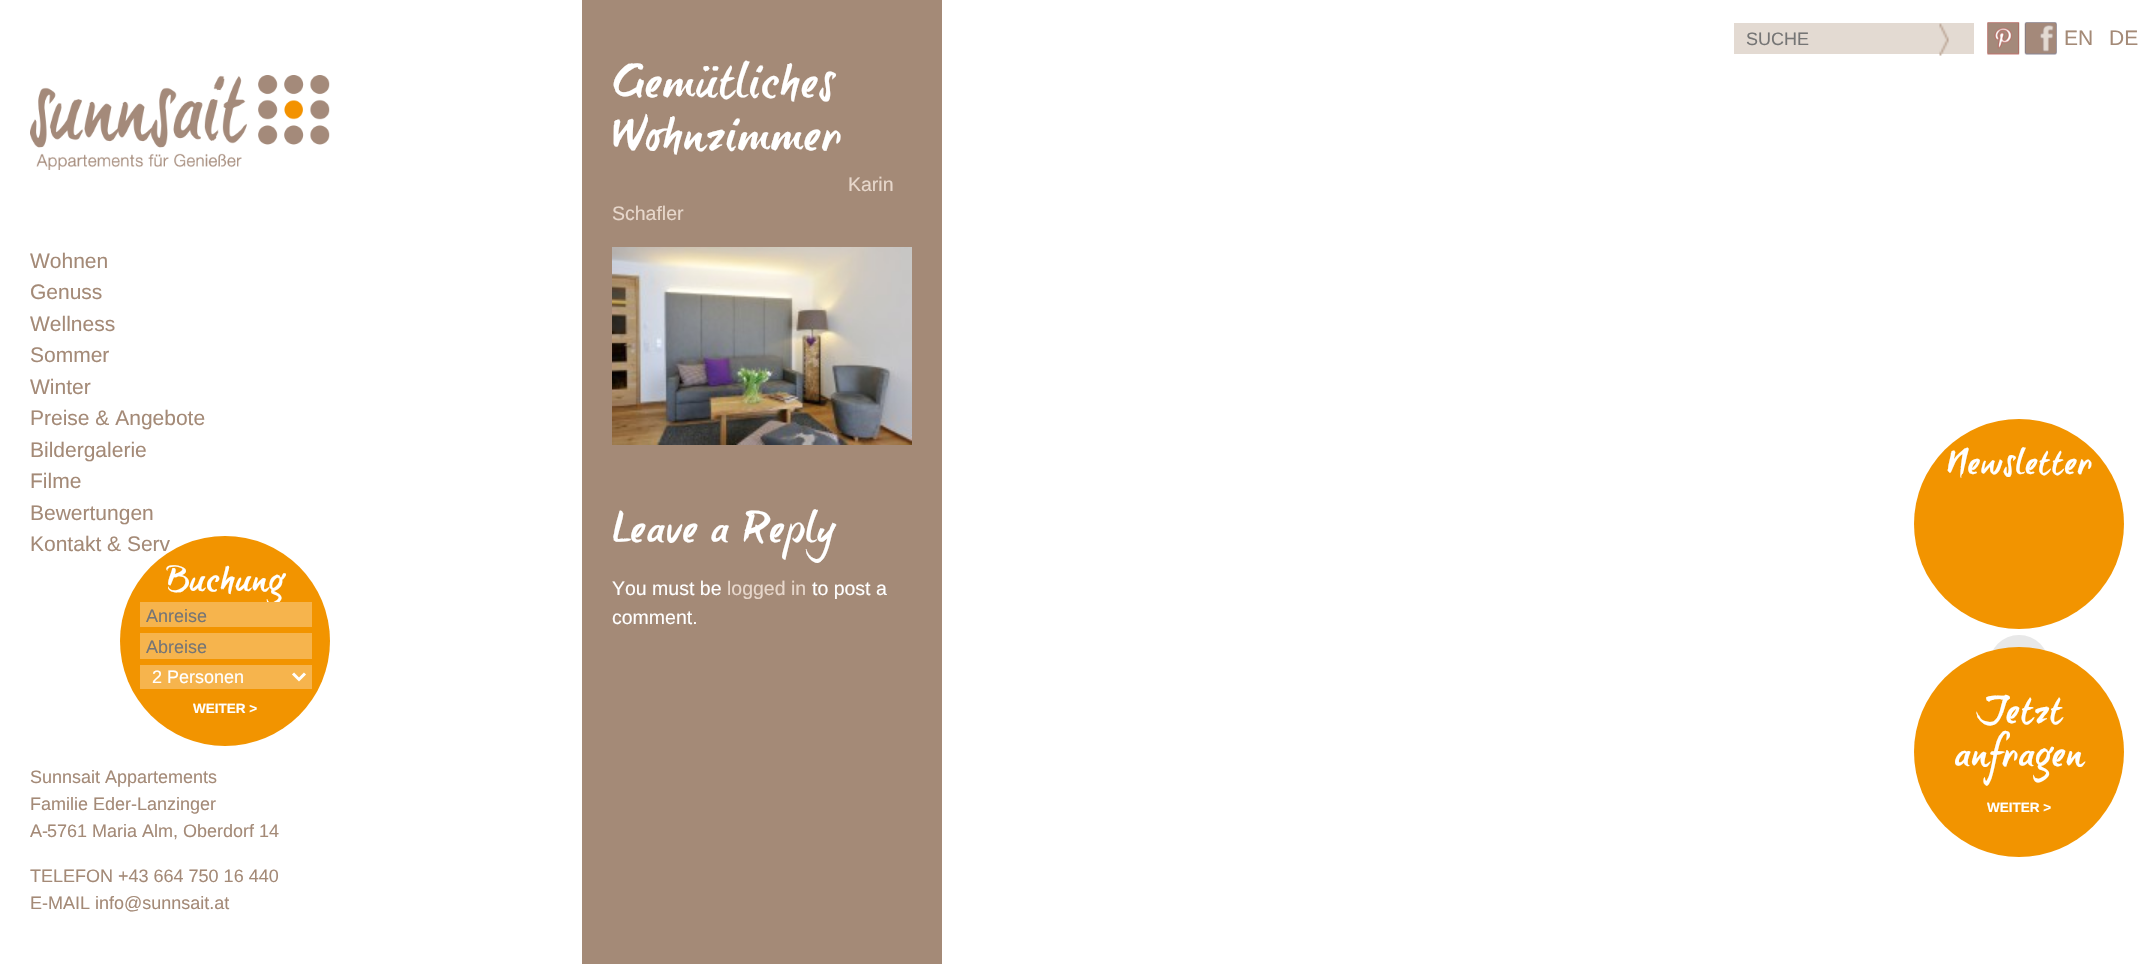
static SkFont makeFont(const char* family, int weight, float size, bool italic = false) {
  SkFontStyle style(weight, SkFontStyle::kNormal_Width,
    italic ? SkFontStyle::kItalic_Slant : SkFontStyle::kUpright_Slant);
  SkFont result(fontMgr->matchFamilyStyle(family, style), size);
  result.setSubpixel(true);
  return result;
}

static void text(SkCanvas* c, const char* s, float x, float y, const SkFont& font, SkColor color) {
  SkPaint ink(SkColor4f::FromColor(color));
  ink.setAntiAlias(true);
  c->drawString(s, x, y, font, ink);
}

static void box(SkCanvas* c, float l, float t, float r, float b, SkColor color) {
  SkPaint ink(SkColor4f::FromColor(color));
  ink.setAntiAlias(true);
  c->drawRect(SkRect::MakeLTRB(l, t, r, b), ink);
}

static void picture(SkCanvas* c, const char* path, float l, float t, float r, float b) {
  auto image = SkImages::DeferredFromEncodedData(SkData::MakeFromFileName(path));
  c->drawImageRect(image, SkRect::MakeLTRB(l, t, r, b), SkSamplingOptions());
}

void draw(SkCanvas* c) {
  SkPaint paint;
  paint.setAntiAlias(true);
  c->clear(0xffffffff);
  box(c, 1734, 23, 1974, 54, 0xffe3dad2);
  SkFont face1 = makeFont("Liberation Sans", 400, 18);
  text(c, "SUCHE", 1746, 45, face1, 0xff757575);
  picture(c, "img_01.png", 1939, 23, 1949, 56);
  picture(c, "img_02.png", 1987, 22, 2019, 55);
  picture(c, "img_03.png", 1987, 22, 2020, 55);
  picture(c, "img_05.png", 2025, 22, 2057, 55);
  picture(c, "img_04.png", 2024, 22, 2057, 55);
  SkFont face2 = makeFont("Liberation Sans", 400, 21);
  text(c, "EN", 2064, 45, face2, 0xffa48a77);
  text(c, "DE", 2109, 45, face2, 0xffa48a77);
  picture(c, "img_06.png", 30, 75, 330, 170);
  text(c, "Wohnen", 30, 268, face2, 0xffa48a77);
  text(c, "Genuss", 30, 299, face2, 0xffa48a77);
  text(c, "Wellness", 30, 331, face2, 0xffa48a77);
  text(c, "Sommer", 30, 362, face2, 0xffa48a77);
  text(c, "Winter", 30, 394, face2, 0xffa48a77);
  text(c, "Preise & Angebote", 30, 425, face2, 0xffa48a77);
  text(c, "Bildergalerie", 30, 457, face2, 0xffa48a77);
  text(c, "Filme", 30, 488, face2, 0xffa48a77);
  text(c, "Bewertungen", 30, 520, face2, 0xffa48a77);
  text(c, "Kontakt & Serv", 30, 551, face2, 0xffa48a77);
  paint.setColor(0xfff29400);
  c->drawCircle(225, 641, 105, paint);
  SkFont face3 = makeFont("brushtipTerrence", 400, 33);
  text(c, "Buchung", 166, 590, face3, 0xffffffff);
  box(c, 140, 602, 312, 627, 0xfff6b44d);
  text(c, "Anreise", 146, 622, face1, 0xff757575);
  box(c, 140, 633, 312, 659, 0xfff6b44d);
  text(c, "Abreise", 146, 653, face1, 0xff757575);
  box(c, 140, 665, 312, 689, 0xfff6b44d);
  paint.setStyle(SkPaint::kStroke_Style);
  paint.setStrokeWidth(3);
  paint.setColor(0xffffffff);
  c->drawPath(SkPathBuilder().moveTo(293, 673.5f).lineTo(299, 679.5f).lineTo(305, 673.5f).detach(), paint);
  text(c, "2 Personen", 152, 683, face1, 0xffffffff);
  SkFont face4 = makeFont("Liberation Sans", 700, 13.5f);
  text(c, "WEITER >", 193, 713, face4, 0xffffffff);
  text(c, "Sunnsait Appartements", 30, 783, face1, 0xffa48a77);
  text(c, "Familie Eder-Lanzinger", 30, 810, face1, 0xffa48a77);
  text(c, "A-", 30, 837, face1, 0xffa48a77);
  text(c, "5761 Maria Alm, Oberdorf 14", 47, 837, face1, 0xffa48a77);
  text(c, "TELEFON +43 664 750 16 440", 30, 882, face1, 0xffa48a77);
  text(c, "E-MAIL info@sunnsait.at", 30, 909, face1, 0xffa48a77);
  box(c, 582, 0, 942, 964, 0xffa48a77);
  SkFont face5 = makeFont("brushtipTerrence", 400, 45);
  text(c, "Gemütliches", 612, 96, face5, 0xffffffff);
  text(c, "Wohnzimmer", 612, 149, face5, 0xffffffff);
  SkFont face6 = makeFont("Liberation Sans", 400, 19.5f);
  text(c, "Karin", 848, 191, face6, 0xffe7d7cb);
  text(c, "Schafler", 612, 220, face6, 0xffe7d7cb);
  picture(c, "img_07.png", 612, 247, 912, 445);
  SkFont face7 = makeFont("brushtipTerrence", 400, 40.5f);
  text(c, "Leave a Reply", 612, 541, face7, 0xffffffff);
  text(c, "You must be", 612, 595, face6, 0xffffffff);
  text(c, "logged in", 727, 595, face6, 0xffe7d7cb);
  text(c, "to post a", 812, 595, face6, 0xffffffff);
  text(c, "comment.", 612, 624, face6, 0xffffffff);
  paint.setStyle(SkPaint::kFill_Style);
  paint.setColor(0xfff29400);
  c->drawCircle(2019, 524, 105, paint);
  text(c, "Newsletter", 1946, 473, face3, 0xffffffff);
  paint.setColor(0xffe8e8e8);
  c->drawCircle(2019, 665, 30, paint);
  paint.setColor(0xfff29400);
  c->drawCircle(2019, 752, 105, paint);
  SkFont face8 = makeFont("brushtipTerrence", 400, 36);
  text(c, "Jetzt", 1975, 722, face8, 0xffffffff);
  text(c, "anfragen", 1954, 765, face8, 0xffffffff);
  text(c, "WEITER >", 1987, 812, face4, 0xffffffff);
}
